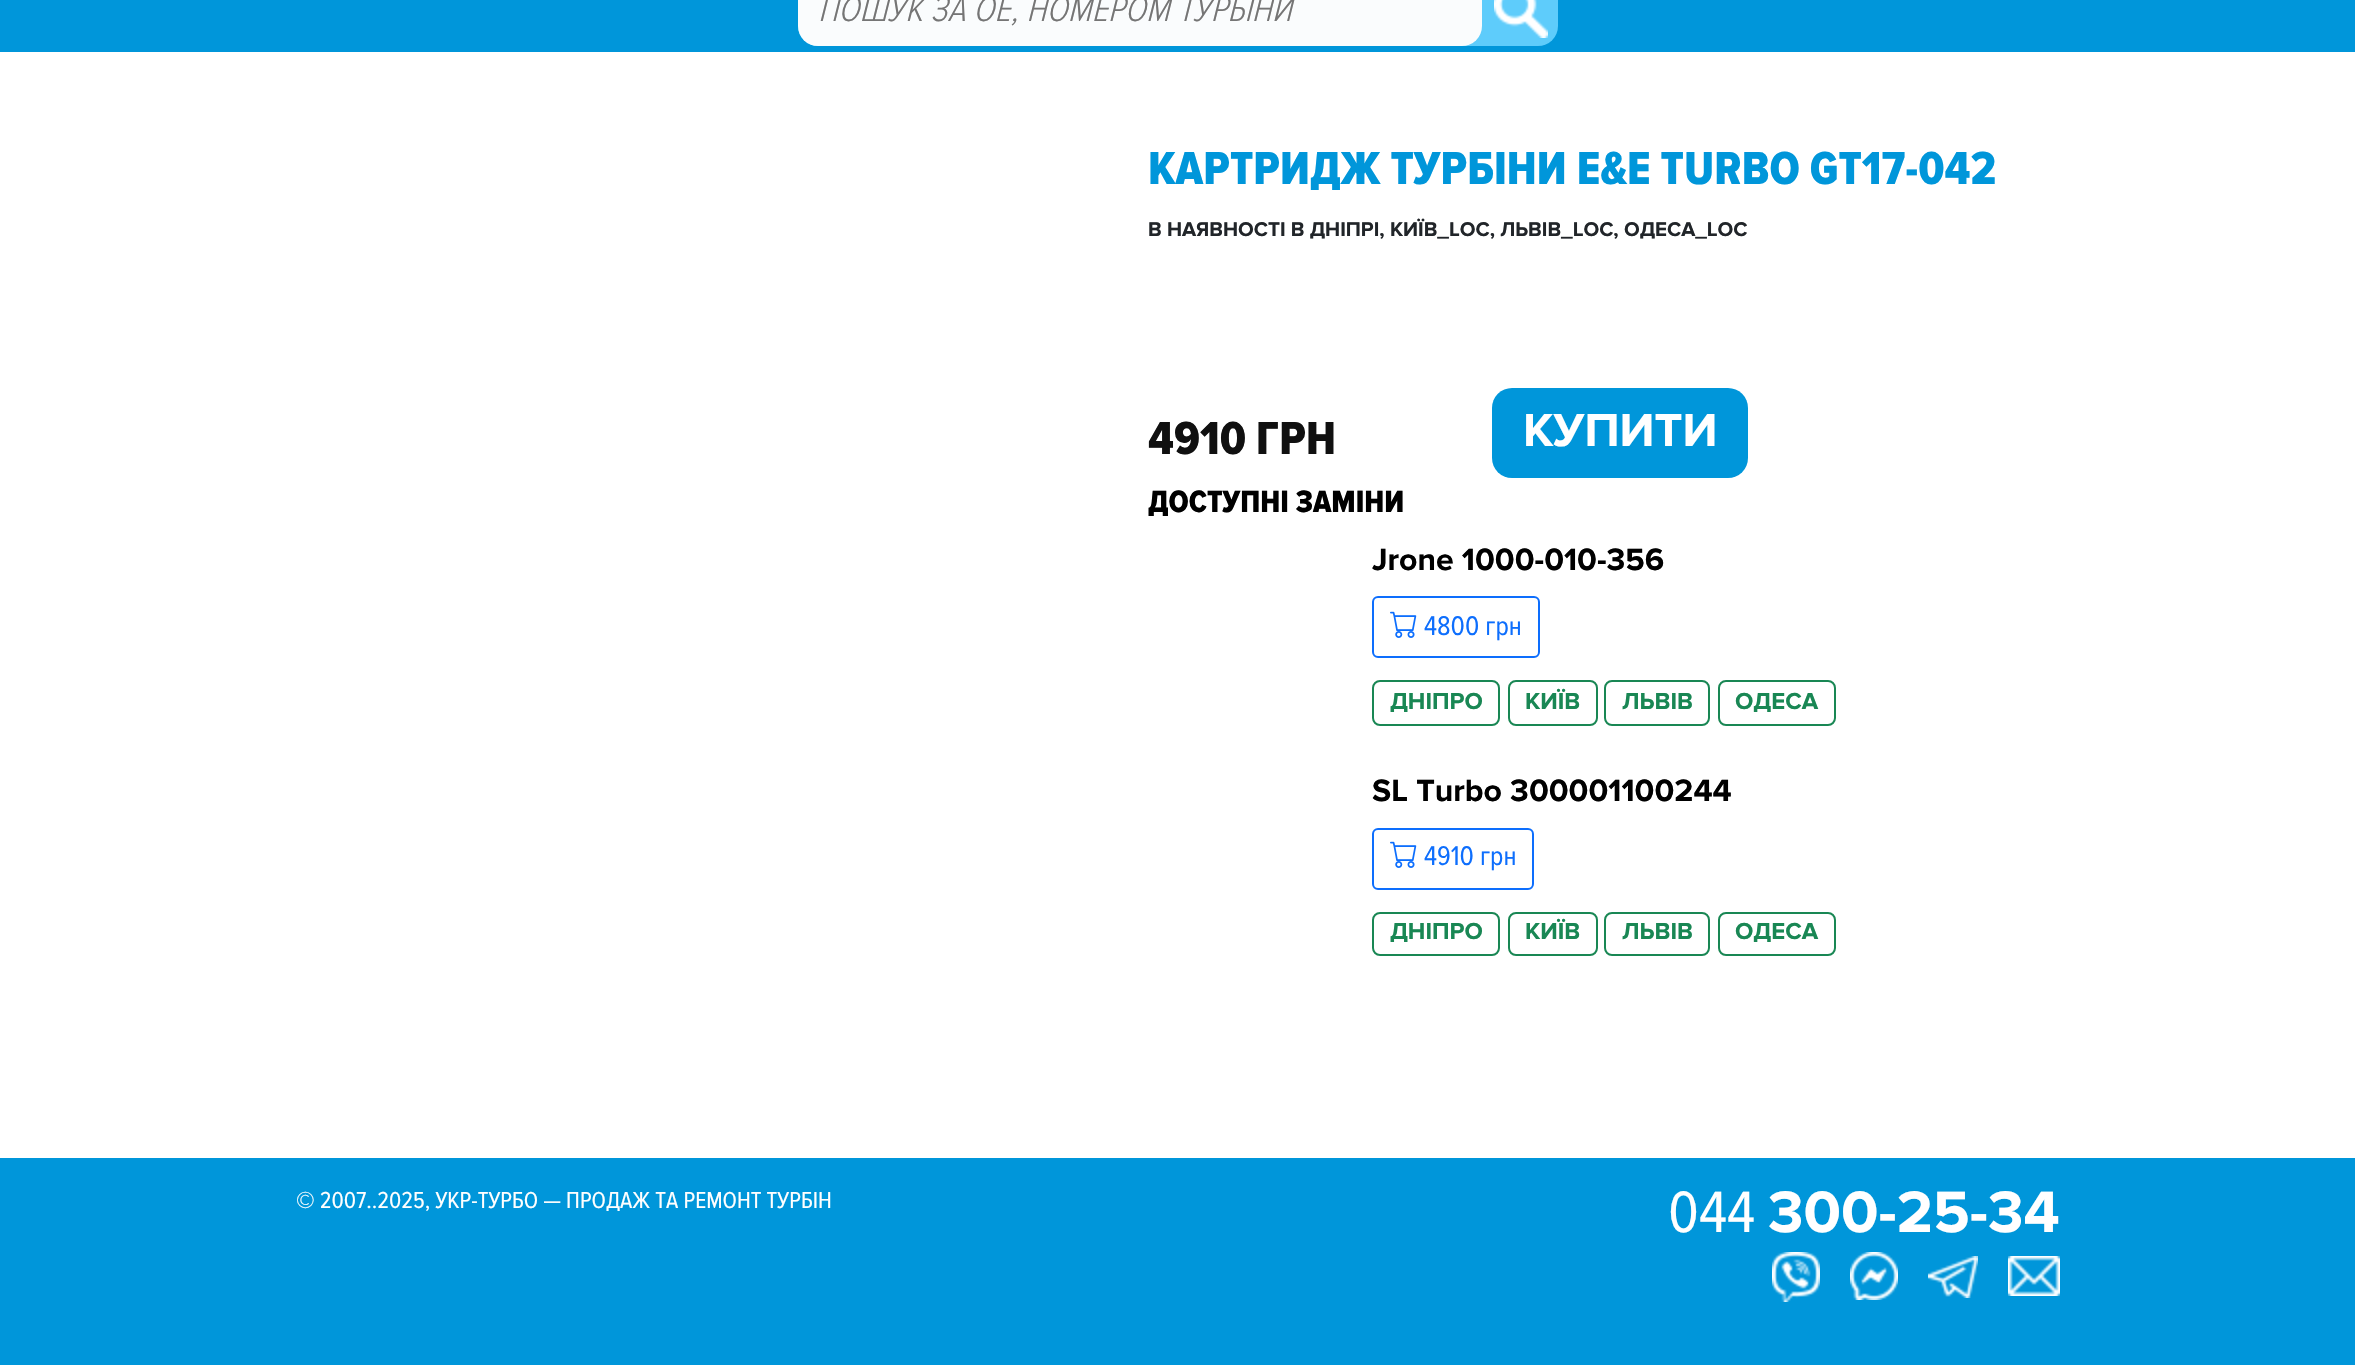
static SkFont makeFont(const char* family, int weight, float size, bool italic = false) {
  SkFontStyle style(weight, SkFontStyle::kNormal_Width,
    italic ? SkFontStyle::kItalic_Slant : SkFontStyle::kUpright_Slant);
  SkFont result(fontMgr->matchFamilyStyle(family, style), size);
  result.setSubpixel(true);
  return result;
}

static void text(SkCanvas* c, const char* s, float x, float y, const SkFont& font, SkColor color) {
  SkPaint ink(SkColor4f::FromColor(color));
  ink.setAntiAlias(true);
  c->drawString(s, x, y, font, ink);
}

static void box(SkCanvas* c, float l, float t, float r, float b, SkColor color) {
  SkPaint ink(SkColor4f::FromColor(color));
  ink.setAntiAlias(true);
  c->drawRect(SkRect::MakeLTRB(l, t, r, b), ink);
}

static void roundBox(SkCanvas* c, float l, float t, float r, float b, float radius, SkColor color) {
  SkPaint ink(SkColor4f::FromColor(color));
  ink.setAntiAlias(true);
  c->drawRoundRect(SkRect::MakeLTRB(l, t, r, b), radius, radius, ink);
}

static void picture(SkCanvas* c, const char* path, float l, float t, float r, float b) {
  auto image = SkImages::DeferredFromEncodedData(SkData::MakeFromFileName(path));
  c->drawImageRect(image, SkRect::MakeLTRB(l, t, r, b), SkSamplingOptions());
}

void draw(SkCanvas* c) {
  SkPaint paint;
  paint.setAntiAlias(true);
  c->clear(0xffffffff);
  box(c, 0, 0, 2355, 52, 0xff0096da);
  roundBox(c, 798, -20, 1558, 46, 20, 0xff5eccfb);
  roundBox(c, 798, -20, 1482, 46, 20, 0xfffafcfd);
  SkFont face1 = makeFont("Proxima Nova", 300, 36, true);
  text(c, "ПОШУК ЗА ОЕ, НОМЕРОМ ТУРБІНИ", 818, 21, face1, 0xff757575);
  picture(c, "img_01.png", 1494, 0, 1548, 38);
  SkFont face2 = makeFont("Proxima Nova", 800, 48);
  text(c, "КАРТРИДЖ ТУРБІНИ E&E TURBO GT17-042", 1148, 184, face2, 0xff0096da);
  SkFont face3 = makeFont("Proxima Nova", 700, 20.6f);
  text(c, "В НАЯВНОСТІ В ДНІПРІ, КИЇВ_LOC, ЛЬВІВ_LOC, ОДЕСА_LOC", 1148, 236, face3, 0xff212529);
  text(c, "4910 ГРН", 1148, 454, face2, 0xff101010);
  roundBox(c, 1492, 388, 1748, 478, 20, 0xff0096da);
  SkFont face4 = makeFont("Proxima Nova", 700, 48);
  text(c, "КУПИТИ", 1523, 446, face4, 0xffffffff);
  SkFont face5 = makeFont("Proxima Nova", 800, 32);
  text(c, "ДОСТУПНІ ЗАМІНИ", 1148, 512, face5, 0xff000000);
  SkFont face6 = makeFont("Proxima Nova", 700, 32);
  text(c, "Jrone 1000-010-356", 1372, 570, face6, 0xff000000);
  paint.setStyle(SkPaint::kStroke_Style);
  paint.setStrokeWidth(2);
  paint.setColor(0xff0d6efd);
  c->drawRoundRect(SkRect::MakeLTRB(1373, 597, 1539, 657), 5, 5, paint);
  picture(c, "img_02.png", 1390, 611, 1417, 638);
  SkFont face7 = makeFont("Proxima Nova", 400, 28);
  text(c, "4800 грн", 1424, 635, face7, 0xff0d6efd);
  paint.setColor(0xff198754);
  c->drawRoundRect(SkRect::MakeLTRB(1373, 681, 1499, 725), 7, 7, paint);
  SkFont face8 = makeFont("Proxima Nova", 700, 24);
  text(c, "ДНІПРО", 1390, 709, face8, 0xff198754);
  c->drawRoundRect(SkRect::MakeLTRB(1509, 681, 1597, 725), 7, 7, paint);
  text(c, "КИЇВ", 1525, 709, face8, 0xff198754);
  c->drawRoundRect(SkRect::MakeLTRB(1605, 681, 1709, 725), 7, 7, paint);
  text(c, "ЛЬВІВ", 1622, 709, face8, 0xff198754);
  c->drawRoundRect(SkRect::MakeLTRB(1719, 681, 1835, 725), 7, 7, paint);
  text(c, "ОДЕСА", 1735, 709, face8, 0xff198754);
  text(c, "SL Turbo 300001100244", 1372, 801, face6, 0xff000000);
  paint.setColor(0xff0d6efd);
  c->drawRoundRect(SkRect::MakeLTRB(1373, 829, 1533, 889), 5, 5, paint);
  picture(c, "img_02.png", 1390, 841, 1417, 868);
  text(c, "4910 грн", 1424, 865, face7, 0xff0d6efd);
  paint.setColor(0xff198754);
  c->drawRoundRect(SkRect::MakeLTRB(1373, 913, 1499, 955), 7, 7, paint);
  text(c, "ДНІПРО", 1390, 939, face8, 0xff198754);
  c->drawRoundRect(SkRect::MakeLTRB(1509, 913, 1597, 955), 7, 7, paint);
  text(c, "КИЇВ", 1525, 939, face8, 0xff198754);
  c->drawRoundRect(SkRect::MakeLTRB(1605, 913, 1709, 955), 7, 7, paint);
  text(c, "ЛЬВІВ", 1622, 939, face8, 0xff198754);
  c->drawRoundRect(SkRect::MakeLTRB(1719, 913, 1835, 955), 7, 7, paint);
  text(c, "ОДЕСА", 1735, 939, face8, 0xff198754);
  box(c, 0, 1158, 2355, 1365, 0xff0096da);
  SkFont face9 = makeFont("Proxima Nova", 400, 24);
  text(c, "© 2007..2025, УКР-ТУРБО — ПРОДАЖ ТА РЕМОНТ ТУРБІН", 296, 1208, face9, 0xffffffff);
  SkFont face10 = makeFont("Proxima Nova", 400, 60.5f);
  text(c, "044", 1668, 1232, face10, 0xffffffff);
  SkFont face11 = makeFont("Proxima Nova", 700, 60.5f);
  text(c, "300-25-34", 1768, 1232, face11, 0xffffffff);
  picture(c, "img_03.png", 1772, 1252, 1820, 1302);
  picture(c, "img_04.png", 1850, 1252, 1898, 1300);
  picture(c, "img_05.png", 1928, 1256, 1978, 1298);
  picture(c, "img_06.png", 2008, 1256, 2060, 1296);
}
